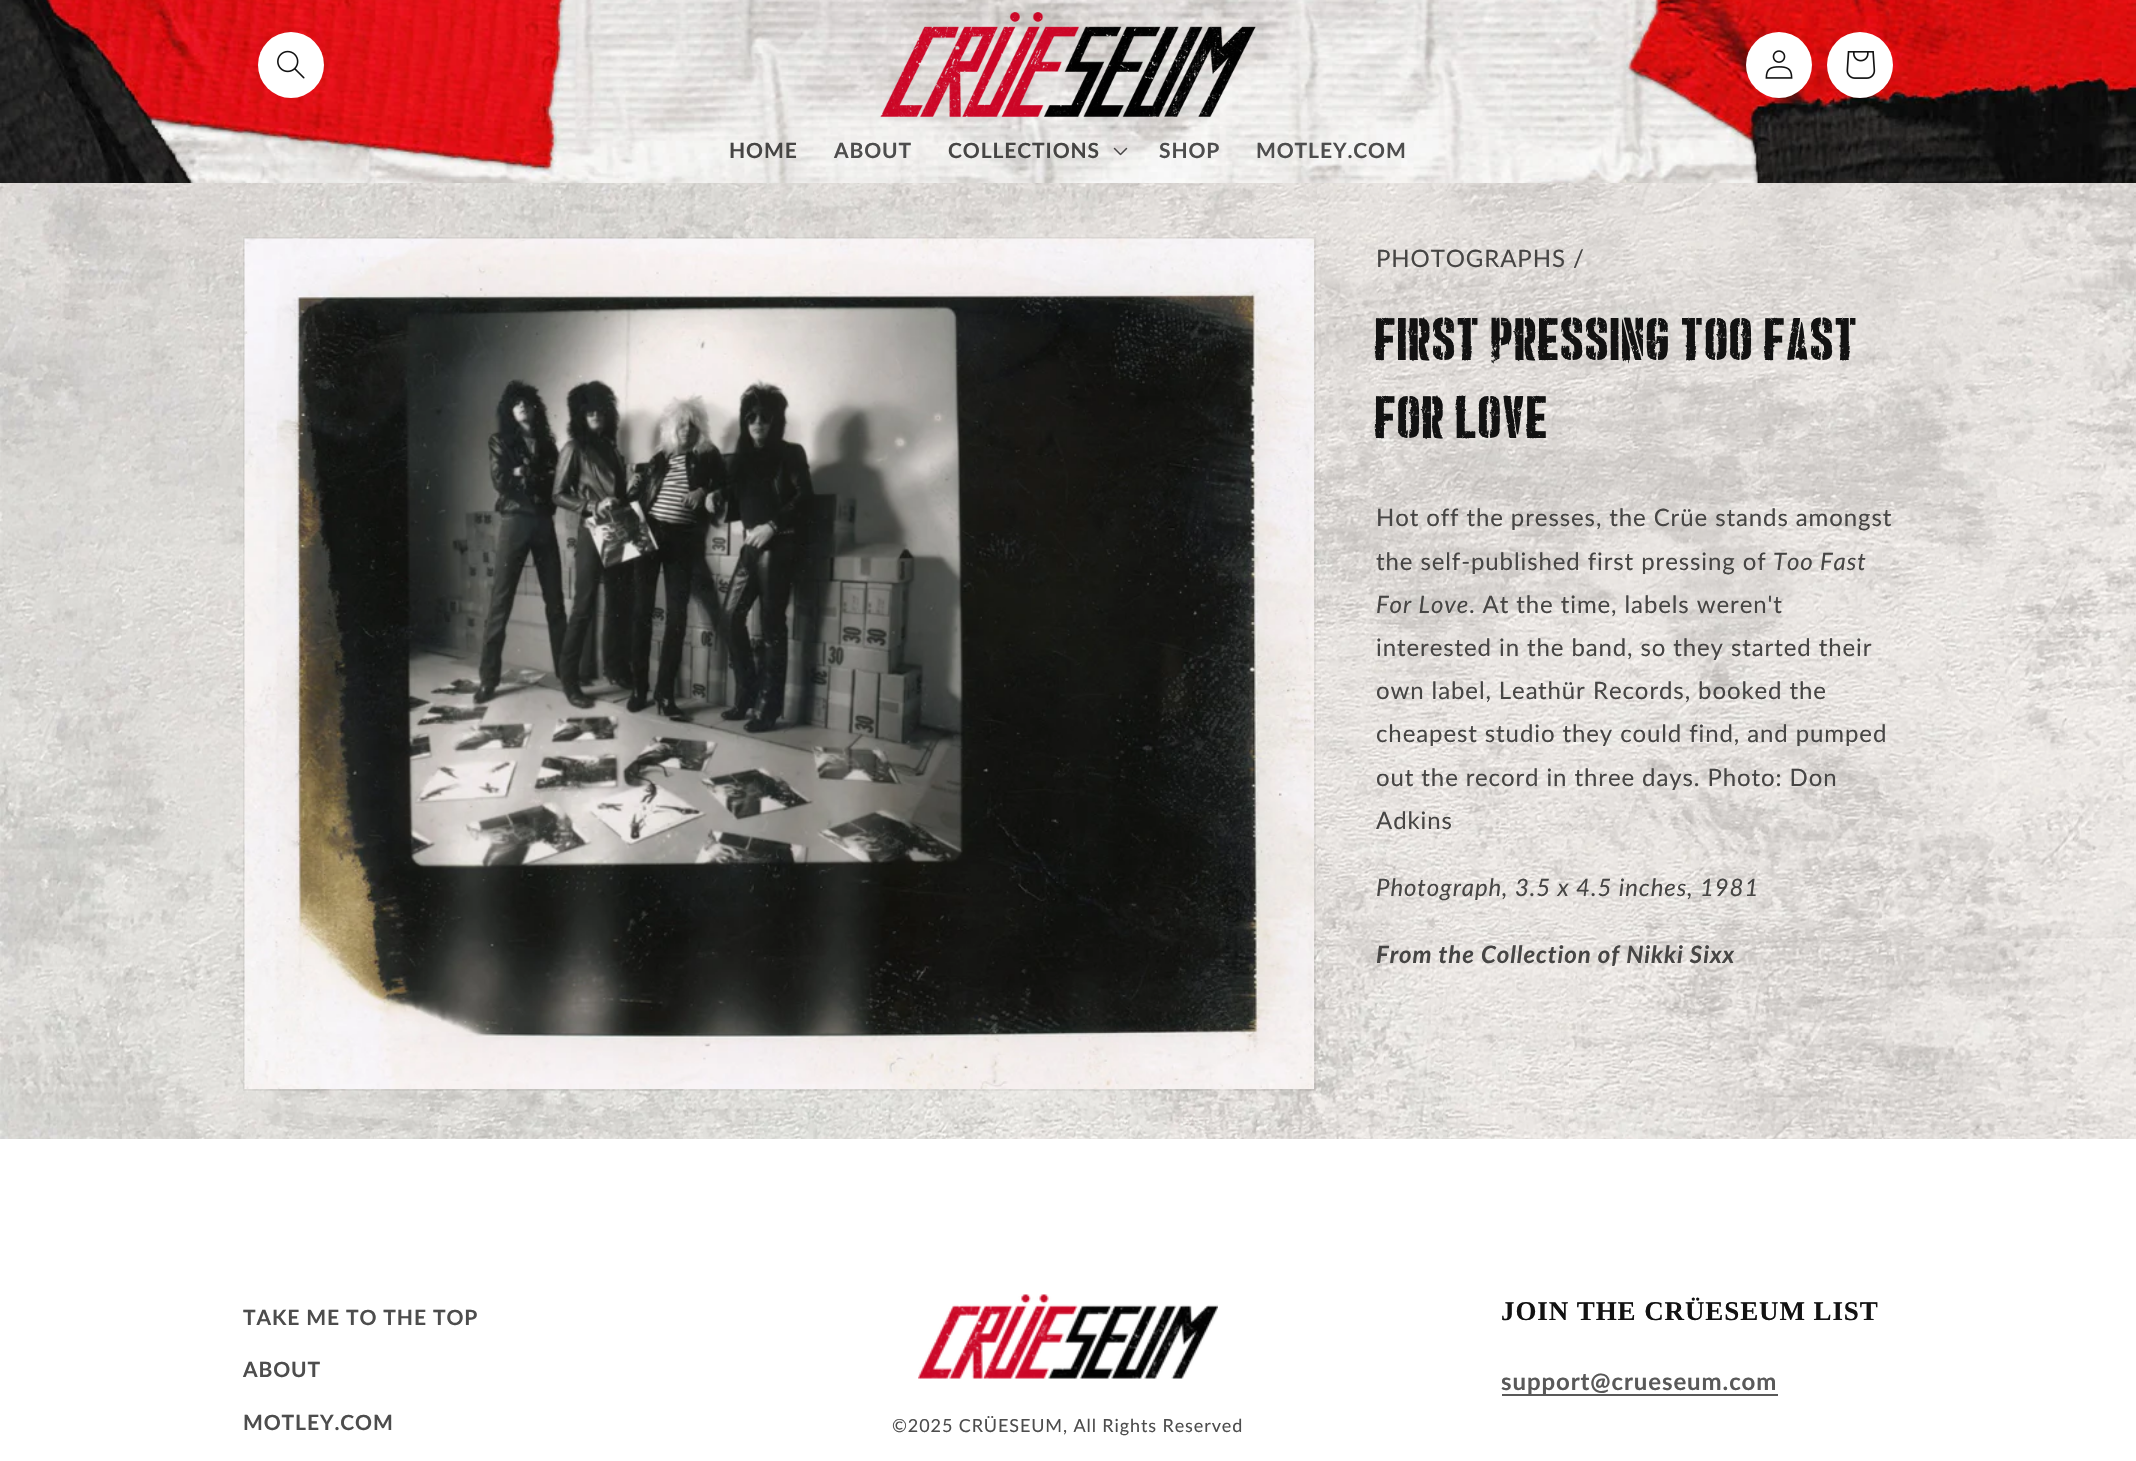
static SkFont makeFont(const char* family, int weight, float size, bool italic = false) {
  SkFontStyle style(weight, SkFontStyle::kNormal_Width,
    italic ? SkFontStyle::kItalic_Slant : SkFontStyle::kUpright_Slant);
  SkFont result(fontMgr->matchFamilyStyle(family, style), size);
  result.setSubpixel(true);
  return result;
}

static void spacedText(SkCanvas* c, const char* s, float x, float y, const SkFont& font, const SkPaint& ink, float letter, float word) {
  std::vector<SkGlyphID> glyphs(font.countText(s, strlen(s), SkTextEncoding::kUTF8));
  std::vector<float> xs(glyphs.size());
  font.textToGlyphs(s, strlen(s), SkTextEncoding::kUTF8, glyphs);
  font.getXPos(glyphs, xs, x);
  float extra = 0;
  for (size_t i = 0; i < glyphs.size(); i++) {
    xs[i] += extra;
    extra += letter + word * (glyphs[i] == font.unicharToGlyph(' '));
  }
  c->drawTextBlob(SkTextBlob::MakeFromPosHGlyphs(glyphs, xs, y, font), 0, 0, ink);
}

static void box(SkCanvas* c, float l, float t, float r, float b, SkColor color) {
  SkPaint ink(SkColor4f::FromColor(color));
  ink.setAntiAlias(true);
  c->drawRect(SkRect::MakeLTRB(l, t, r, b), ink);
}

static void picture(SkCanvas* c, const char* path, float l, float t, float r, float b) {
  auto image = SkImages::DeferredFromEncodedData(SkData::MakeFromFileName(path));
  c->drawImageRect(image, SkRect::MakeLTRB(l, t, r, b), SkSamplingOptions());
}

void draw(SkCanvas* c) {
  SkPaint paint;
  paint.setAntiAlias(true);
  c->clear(0xffffffff);
  picture(c, "img_01.png", 0, 183, 2136, 1139);
  picture(c, "img_02.png", 0, 0, 2136, 183);
  paint.setColor(0xffffffff);
  c->drawCircle(291, 65, 33, paint);
  picture(c, "img_03.png", 277, 50, 305, 79);
  picture(c, "img_04.png", 880, 12, 1256, 117);
  c->drawCircle(1779, 65, 33, paint);
  picture(c, "img_05.png", 1765, 50, 1793, 79);
  c->drawCircle(1860, 65, 33, paint);
  picture(c, "img_06.png", 1846, 51, 1876, 79);
  SkFont face1 = makeFont("Lato", 700, 21);
  paint.setColor(0xff464544);
  spacedText(c, "HOME", 729, 158, face1, paint, 0.9f, 0);
  paint.setColor(0xff4d4d4d);
  spacedText(c, "ABOUT", 834, 158, face1, paint, 0.9f, 0);
  paint.setColor(0xff464544);
  spacedText(c, "COLLECTIONS", 948, 158, face1, paint, 0.9f, 0);
  picture(c, "img_07.png", 1113, 147, 1128, 156);
  paint.setColor(0xff4d4d4d);
  spacedText(c, "SHOP", 1159, 158, face1, paint, 0.9f, 0);
  spacedText(c, "MOTLEY.COM", 1256, 158, face1, paint, 0.9f, 0);
  paint.setStyle(SkPaint::kStroke_Style);
  paint.setStrokeWidth(2);
  paint.setColor(0x0d121212);
  c->drawRect(SkRect::MakeLTRB(244, 238, 1315, 1090), paint);
  picture(c, "img_08.png", 244, 238, 1314, 1089);
  SkFont face2 = makeFont("Lato", 400, 24);
  paint.setStyle(SkPaint::kFill_Style);
  paint.setColor(0xff464544);
  spacedText(c, "PHOTOGRAPHS", 1376, 267, face2, paint, 0.9f, 0);
  spacedText(c, "/", 1573, 267, face2, paint, 0.9f, 0);
  SkFont face3 = makeFont("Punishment", 400, 60);
  paint.setColor(0xff121212);
  spacedText(c, "First Pressing Too Fast", 1376, 360, face3, paint, 0.9f, 0);
  spacedText(c, "For Love", 1376, 438, face3, paint, 0.9f, 0);
  paint.setColor(0xff464544);
  spacedText(c, "Hot off the presses, the Crüe stands amongst", 1376, 526, face2, paint, 0.9f, 0);
  spacedText(c, "the self-published first pressing of", 1376, 570, face2, paint, 0.9f, 0);
  SkFont face4 = makeFont("Lato", 400, 24, true);
  spacedText(c, "Too", 1773, 570, face4, paint, 0.9f, 0);
  spacedText(c, "Fast", 1820, 570, face4, paint, 0.9f, 0);
  spacedText(c, "For Love", 1376, 613, face4, paint, 0.9f, 0);
  spacedText(c, ". At the time, labels weren't", 1469, 613, face2, paint, 0.9f, 0);
  spacedText(c, "interested in the band", 1376, 656, face2, paint, 0.9f, 0);
  spacedText(c, ", so they started their", 1627, 656, face2, paint, 0.9f, 0);
  spacedText(c, "own label, Lea", 1376, 699, face2, paint, 0.9f, 0);
  spacedText(c, "thür", 1538, 699, face2, paint, 0.9f, 0);
  spacedText(c, "Records, booked the", 1593, 699, face2, paint, 0.9f, 0);
  spacedText(c, "cheapest studio they could find, and pumped", 1376, 742, face2, paint, 0.9f, 0);
  spacedText(c, "out the r", 1376, 786, face2, paint, 0.9f, 0);
  spacedText(c, "ecord in three days. Photo: Don", 1475, 786, face2, paint, 0.9f, 0);
  spacedText(c, "Adkins", 1376, 829, face2, paint, 0.9f, 0);
  spacedText(c, "Photograph, 3.5 x 4.5 inches, 1981", 1376, 896, face4, paint, 0.9f, 0);
  SkFont face5 = makeFont("Lato", 700, 24, true);
  spacedText(c, "From the Collection of Nikki Sixx", 1376, 963, face5, paint, 0.9f, 0);
  paint.setColor(0xff4d4d4d);
  spacedText(c, "TAKE ME TO THE TOP", 243, 1325, face1, paint, 0.9f, 0);
  spacedText(c, "ABOUT", 243, 1377, face1, paint, 0.9f, 0);
  spacedText(c, "MOTLEY.COM", 243, 1430, face1, paint, 0.9f, 0);
  picture(c, "img_09.png", 918, 1294, 1218, 1379);
  SkFont face6 = makeFont("Lato", 400, 18);
  spacedText(c, "©2025 CRÜESEUM, All Rights Reserved", 892, 1432, face6, paint, 0.9f, 0);
  SkFont face7 = makeFont("Liberation Serif", 700, 27);
  paint.setColor(0xff121212);
  spacedText(c, "JOIN THE CRÜESEUM LIST", 1501, 1320, face7, paint, 0.9f, 0);
  SkFont face8 = makeFont("Lato", 700, 24);
  paint.setColor(0xff595959);
  spacedText(c, "support@crueseum.com", 1501, 1390, face8, paint, 0.9f, 0);
  box(c, 1502, 1394, 1778, 1396, 0xff595959);
}
